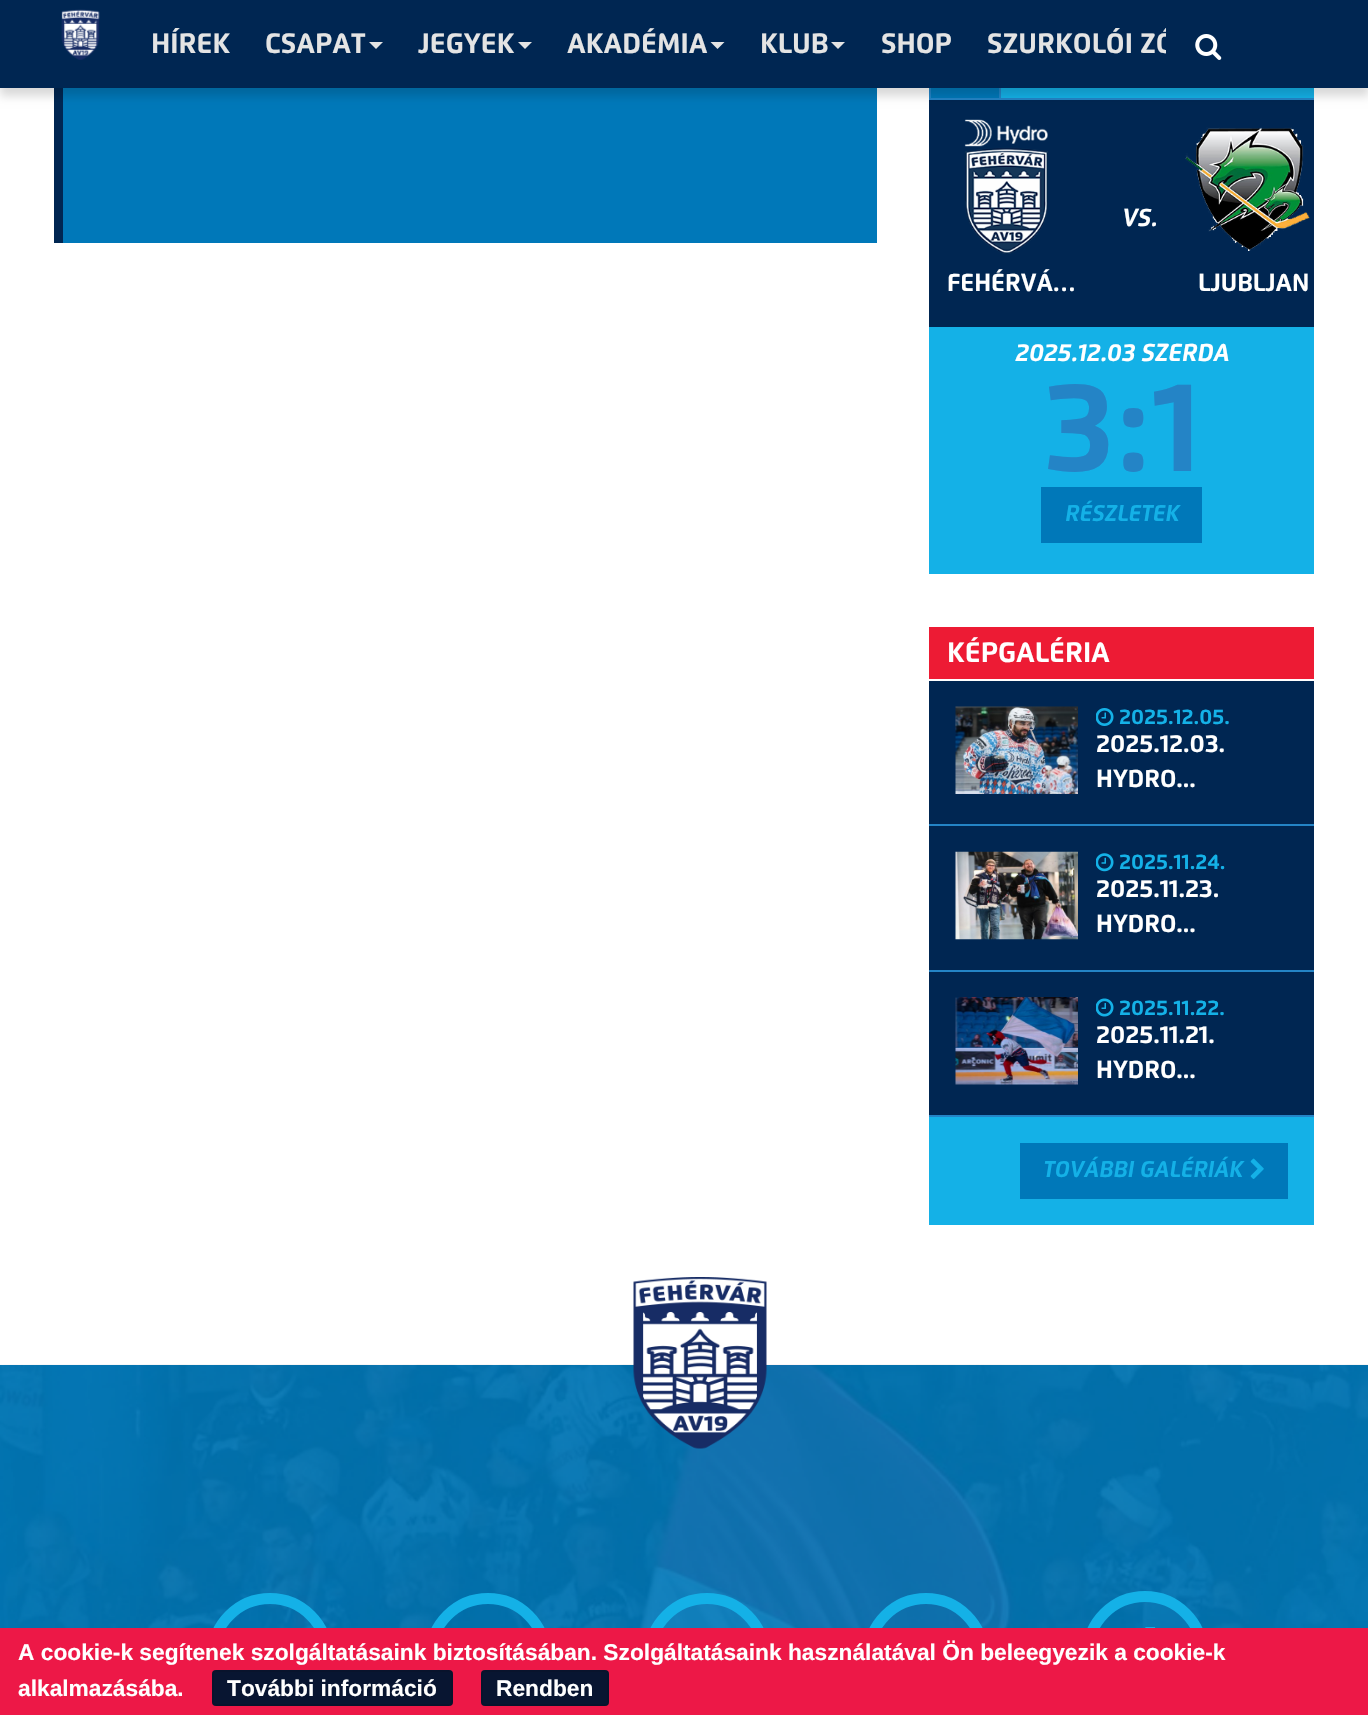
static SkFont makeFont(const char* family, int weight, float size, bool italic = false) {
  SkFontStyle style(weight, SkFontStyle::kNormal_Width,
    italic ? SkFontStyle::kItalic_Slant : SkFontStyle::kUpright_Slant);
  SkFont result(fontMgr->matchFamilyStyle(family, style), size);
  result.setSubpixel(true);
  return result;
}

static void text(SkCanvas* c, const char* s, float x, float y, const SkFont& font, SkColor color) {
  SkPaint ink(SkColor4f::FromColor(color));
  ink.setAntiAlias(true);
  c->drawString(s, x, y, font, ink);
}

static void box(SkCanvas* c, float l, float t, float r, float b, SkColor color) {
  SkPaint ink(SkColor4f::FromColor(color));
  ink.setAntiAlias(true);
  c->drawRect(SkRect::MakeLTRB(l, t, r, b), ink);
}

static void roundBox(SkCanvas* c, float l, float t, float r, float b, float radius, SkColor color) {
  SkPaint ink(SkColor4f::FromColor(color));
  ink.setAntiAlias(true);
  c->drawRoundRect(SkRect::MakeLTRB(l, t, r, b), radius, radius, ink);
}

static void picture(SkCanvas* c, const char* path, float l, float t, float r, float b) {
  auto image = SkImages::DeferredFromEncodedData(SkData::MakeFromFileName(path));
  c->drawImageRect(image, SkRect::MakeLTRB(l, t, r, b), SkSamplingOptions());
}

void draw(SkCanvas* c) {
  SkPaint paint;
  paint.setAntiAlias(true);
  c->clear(0xffffffff);
  box(c, 63, 88, 877, 243, 0xff0078b9);
  box(c, 54, 88, 63, 243, 0xff002652);
  box(c, 929, 88, 1314, 574, 0xff14b1e7);
  box(c, 1001, 98, 1314, 100, 0xff2484c6);
  box(c, 931, 88, 999, 98, 0xff0078b9);
  paint.setStyle(SkPaint::kStroke_Style);
  paint.setStrokeWidth(2);
  paint.setColor(0xff2484c6);
  c->drawRect(SkRect::MakeLTRB(930, 34, 1000, 99), paint);
  box(c, 929, 100, 1314, 327, 0xff002652);
  paint.setStyle(SkPaint::kFill_Style);
  paint.setColor(0x26000000);
  paint.setMaskFilter(SkMaskFilter::MakeBlur(kNormal_SkBlurStyle, 4.5f));
  c->drawRect(SkRect::MakeLTRB(0, 9, 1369, 96), paint);
  paint.setMaskFilter(nullptr);
  box(c, 0, 0, 1368, 88, 0xff002652);
  picture(c, "img_01.png", 61, 9, 100, 60);
  SkFont face1 = makeFont("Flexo", 700, 28);
  text(c, "HÍREK", 151, 53, face1, 0xffe4e4e4);
  text(c, "CSAPAT", 265, 53, face1, 0xffe4e4e4);
  paint.setColor(0xffe4e4e4);
  c->drawPath(SkPathBuilder().moveTo(369, 42).lineTo(383, 42).lineTo(376, 49).close().detach(), paint);
  text(c, "JEGYEK", 418, 53, face1, 0xffe4e4e4);
  c->drawPath(SkPathBuilder().moveTo(518, 42).lineTo(532, 42).lineTo(525, 49).close().detach(), paint);
  text(c, "AKADÉMIA", 567, 53, face1, 0xffe4e4e4);
  c->drawPath(SkPathBuilder().moveTo(710.5f, 42).lineTo(724.5f, 42).lineTo(717.5f, 49).close().detach(), paint);
  text(c, "KLUB", 760, 53, face1, 0xffe4e4e4);
  c->drawPath(SkPathBuilder().moveTo(831, 42).lineTo(845, 42).lineTo(838, 49).close().detach(), paint);
  text(c, "SHOP", 881, 53, face1, 0xffe4e4e4);
  text(c, "SZURKOLÓI ZÓ", 987, 53, face1, 0xffe4e4e4);
  box(c, 1166, 28, 1173, 54, 0xff002652);
  picture(c, "img_02.png", 1195, 34, 1222, 60);
  SkFont face2 = makeFont("Flexo", 700, 24.5f, true);
  text(c, "VS.", 1122, 226, face2, 0xffffffff);
  picture(c, "img_03.png", 964, 119, 1048, 254);
  SkFont face3 = makeFont("Flexo", 700, 24.5f);
  text(c, "FEHÉRVÁ…", 947, 291, face3, 0xffffffff);
  picture(c, "img_04.png", 1185, 127, 1310, 251);
  text(c, "LJUBLJAN", 1198, 291, face3, 0xffffffff);
  text(c, "2025.12.03 SZERDA", 1015, 361, face2, 0xffffffff);
  SkFont face4 = makeFont("Flexo", 700, 127);
  text(c, "3:1", 1043, 471, face4, 0xff2484c6);
  box(c, 1041, 487, 1202, 543, 0xff0078b9);
  SkFont face5 = makeFont("Flexo", 700, 22.75f, true);
  text(c, "RÉSZLETEK", 1065, 521, face5, 0xff14b1e7);
  box(c, 929, 1117, 1314, 1225, 0xff14b1e7);
  box(c, 929, 627, 1314, 679, 0xffed1b34);
  text(c, "KÉPGALÉRIA", 947, 662, face1, 0xffffffff);
  box(c, 929, 681, 1314, 1115, 0xff002652);
  box(c, 929, 824, 1314, 826, 0xff2484c6);
  picture(c, "img_05.png", 955, 706, 1078, 794);
  picture(c, "img_06.png", 1096, 708, 1114, 726);
  SkFont face6 = makeFont("Flexo", 700, 21);
  text(c, "2025.12.05.", 1119, 724, face6, 0xff14b1e7);
  text(c, "2025.12.03.", 1096, 752, face3, 0xffffffff);
  text(c, "HYDRO...", 1096, 787, face3, 0xffffffff);
  box(c, 929, 970, 1314, 972, 0xff2484c6);
  picture(c, "img_07.png", 955, 851, 1078, 940);
  picture(c, "img_08.png", 1096, 853, 1114, 872);
  text(c, "2025.11.24.", 1119, 869, face6, 0xff14b1e7);
  text(c, "2025.11.23.", 1096, 897, face3, 0xffffffff);
  text(c, "HYDRO...", 1096, 932, face3, 0xffffffff);
  box(c, 929, 1115, 1314, 1117, 0xff2484c6);
  picture(c, "img_09.png", 955, 997, 1078, 1085);
  picture(c, "img_10.png", 1096, 998, 1114, 1017);
  text(c, "2025.11.22.", 1119, 1015, face6, 0xff14b1e7);
  text(c, "2025.11.21.", 1096, 1043, face3, 0xffffffff);
  text(c, "HYDRO...", 1096, 1078, face3, 0xffffffff);
  box(c, 1020, 1143, 1288, 1199, 0xff0078b9);
  text(c, "TOVÁBBI GALÉRIÁK", 1043, 1177, face5, 0xff14b1e7);
  picture(c, "img_11.png", 1250, 1158, 1264, 1179);
  box(c, 0, 1365, 1368, 1628, 0xff0078b9);
  picture(c, "img_12.png", 0, 1364, 1368, 1628);
  picture(c, "img_13.png", 633, 1277, 767, 1449);
  paint.setStyle(SkPaint::kStroke_Style);
  paint.setStrokeWidth(11);
  paint.setColor(0xff14b1e7);
  c->drawCircle(270, 1656, 57.5f, paint);
  c->drawCircle(488, 1656, 57.5f, paint);
  c->drawCircle(707, 1656, 57.5f, paint);
  c->drawCircle(926, 1656, 57.5f, paint);
  picture(c, "img_14.png", 1145, 1627, 1156, 1628);
  c->drawCircle(1145, 1654, 57.5f, paint);
  box(c, 0, 1628, 1368, 1715, 0xffed1847);
  SkFont face7 = makeFont("Liberation Sans", 700, 22.75f);
  text(c, "A cookie-k segítenek szolgáltatásaink biztosításában. Szolgáltatásaink használatával Ön beleegyezik a cookie-k", 18, 1660, face7, 0xffffffff);
  text(c, "alkalmazásába.", 18, 1696, face7, 0xffffffff);
  roundBox(c, 212, 1670, 453, 1706, 4, 0xff081531);
  paint.setStrokeWidth(2);
  paint.setColor(0x1a000000);
  c->drawRoundRect(SkRect::MakeLTRB(213, 1671, 452, 1705), 3, 3, paint);
  text(c, "További információ", 227, 1696, face7, 0xffffffff);
  roundBox(c, 481, 1670, 609, 1706, 4, 0xff081531);
  c->drawRoundRect(SkRect::MakeLTRB(482, 1671, 608, 1705), 3, 3, paint);
  text(c, "Rendben", 496, 1696, face7, 0xffffffff);
}
